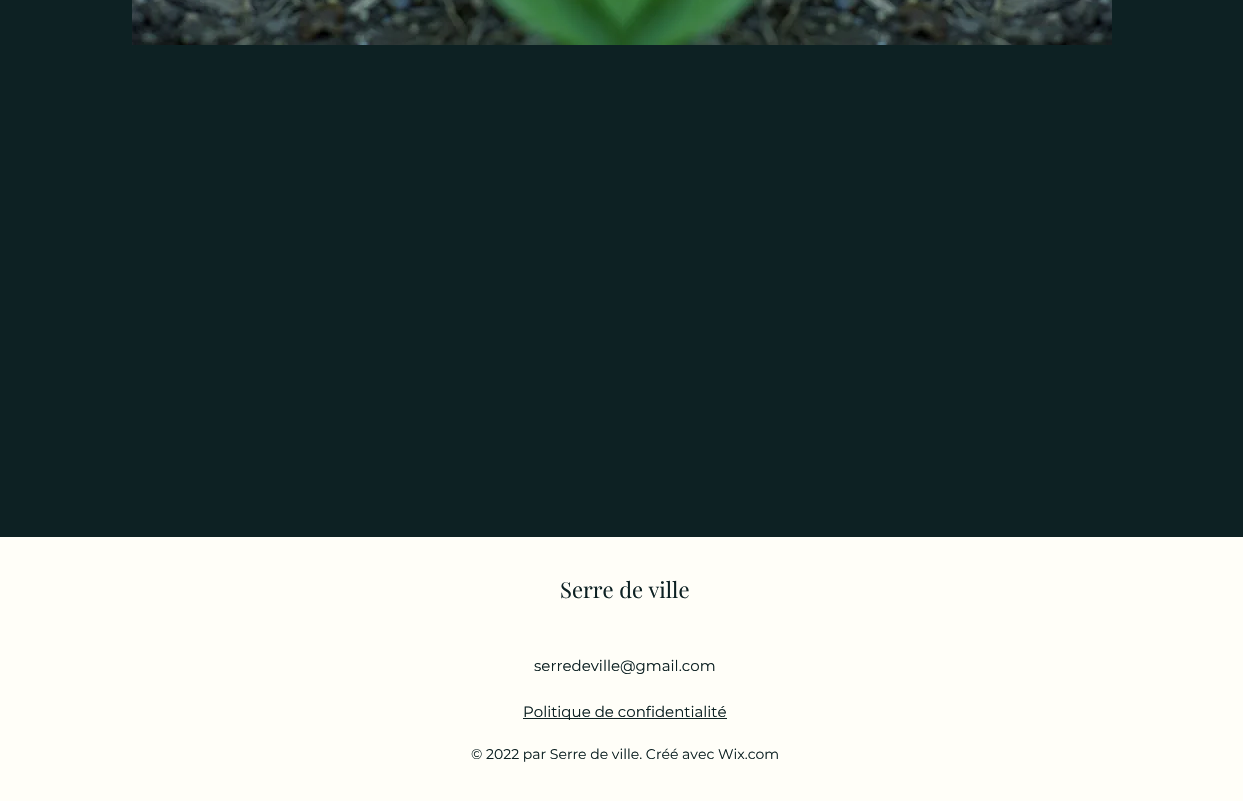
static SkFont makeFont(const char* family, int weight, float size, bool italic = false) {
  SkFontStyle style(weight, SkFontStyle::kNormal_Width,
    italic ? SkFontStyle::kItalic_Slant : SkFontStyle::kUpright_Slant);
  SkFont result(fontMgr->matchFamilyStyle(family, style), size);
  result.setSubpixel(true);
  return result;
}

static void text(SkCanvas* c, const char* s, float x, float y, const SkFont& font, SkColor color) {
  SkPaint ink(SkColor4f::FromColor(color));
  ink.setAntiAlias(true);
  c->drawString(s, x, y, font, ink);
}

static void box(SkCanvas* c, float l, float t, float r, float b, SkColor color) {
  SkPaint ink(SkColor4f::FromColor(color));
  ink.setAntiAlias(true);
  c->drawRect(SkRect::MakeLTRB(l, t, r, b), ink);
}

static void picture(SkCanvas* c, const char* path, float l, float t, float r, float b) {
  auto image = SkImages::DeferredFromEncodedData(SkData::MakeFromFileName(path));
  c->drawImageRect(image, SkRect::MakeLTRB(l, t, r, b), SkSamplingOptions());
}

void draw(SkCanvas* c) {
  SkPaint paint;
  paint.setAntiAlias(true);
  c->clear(0xfffffef8);
  box(c, 0, 0, 1243, 537, 0xff0d2123);
  picture(c, "img_01.png", 132, 0, 622, 45);
  picture(c, "img_02.png", 622, 0, 1112, 45);
  SkFont face1 = makeFont("Playfair Display", 400, 22);
  text(c, "Serre de ville", 560, 598, face1, 0xff0d2123);
  SkFont face2 = makeFont("Montserrat", 400, 15);
  text(c, "serredeville@gmail.com", 534, 671, face2, 0xff0d2123);
  box(c, 523, 718, 727, 719, 0xff0d2123);
  text(c, "Politique de confidentialité", 523, 717, face2, 0xff0d2123);
  SkFont face3 = makeFont("Montserrat", 400, 14);
  text(c, "© 2022 par Serre de ville. Créé avec Wix.com", 471, 759, face3, 0xff0d2123);
}
